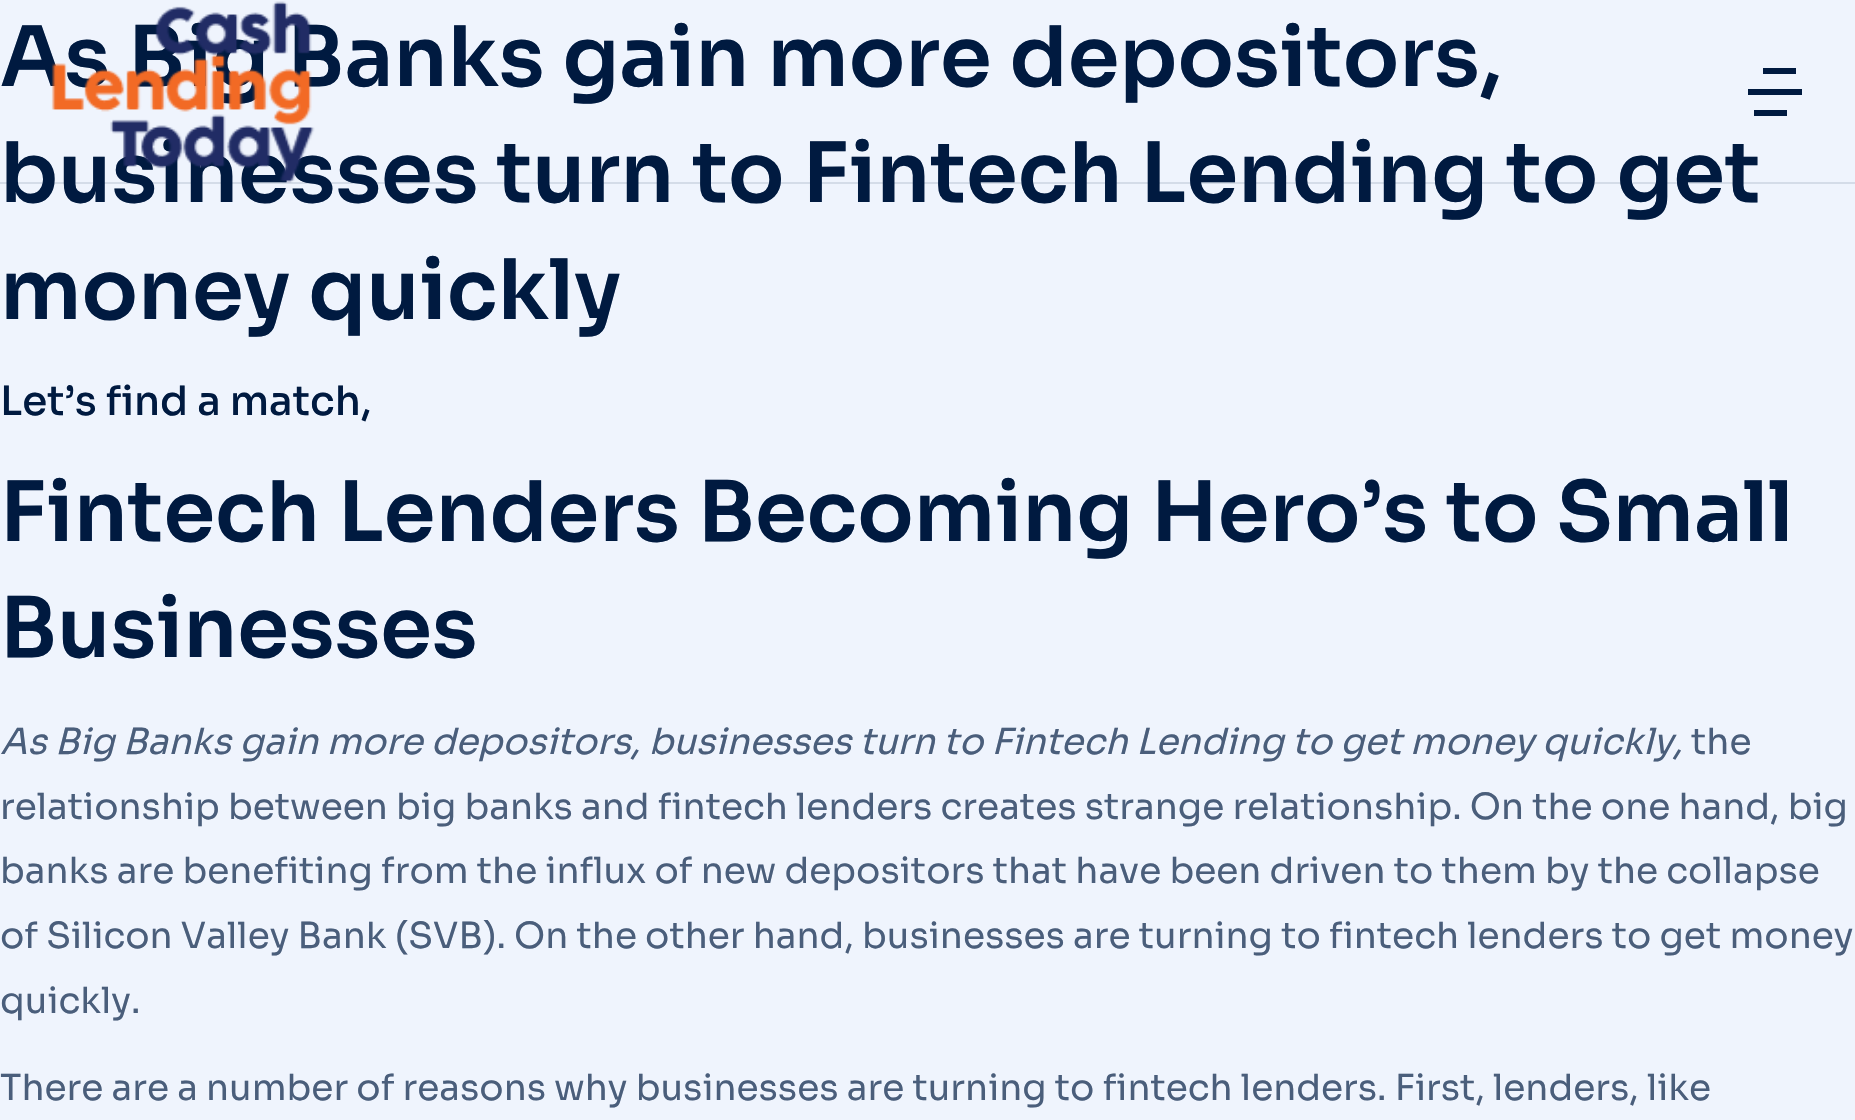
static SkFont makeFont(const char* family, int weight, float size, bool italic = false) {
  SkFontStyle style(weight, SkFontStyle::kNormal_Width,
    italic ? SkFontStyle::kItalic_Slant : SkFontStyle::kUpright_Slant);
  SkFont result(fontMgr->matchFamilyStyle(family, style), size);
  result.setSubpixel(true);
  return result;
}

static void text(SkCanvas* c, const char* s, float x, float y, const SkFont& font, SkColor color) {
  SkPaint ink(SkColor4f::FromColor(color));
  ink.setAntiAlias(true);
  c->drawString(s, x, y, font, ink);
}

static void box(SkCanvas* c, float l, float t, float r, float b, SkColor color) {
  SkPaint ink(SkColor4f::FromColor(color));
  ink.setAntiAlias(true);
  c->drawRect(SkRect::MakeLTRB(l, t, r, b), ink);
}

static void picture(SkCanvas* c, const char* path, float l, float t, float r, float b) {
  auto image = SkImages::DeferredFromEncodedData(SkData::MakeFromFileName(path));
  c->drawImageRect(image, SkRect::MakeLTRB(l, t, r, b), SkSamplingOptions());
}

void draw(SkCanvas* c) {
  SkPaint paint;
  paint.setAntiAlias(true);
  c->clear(0xffeff4fd);
  box(c, 0, 182, 1855, 184, 0x1c001a40);
  SkFont face1 = makeFont("Sora", 600, 83.25f);
  text(c, "As Big Banks gain more depositors,", 0, 86, face1, 0xff001a40);
  text(c, "businesses turn to Fintech Lending to get", 0, 202, face1, 0xff001a40);
  picture(c, "img_01.png", 51, 1, 315, 183);
  paint.setColor(0xff001a40);
  c->drawPath(SkPathBuilder().moveTo(1787, 110).lineTo(1787, 116).lineTo(1754, 116).lineTo(1754, 110).close().moveTo(1802, 89).lineTo(1802, 95).lineTo(1748, 95).lineTo(1748, 89).close().moveTo(1796, 68).lineTo(1796, 74).lineTo(1763, 74).lineTo(1763, 68).close().detach(), paint);
  text(c, "money quickly", 0, 319, face1, 0xff001a40);
  SkFont face2 = makeFont("Sora", 500, 40.5f);
  text(c, "Let’s find a match,", 0, 415, face2, 0xff001a40);
  text(c, "Fintech Lenders Becoming Hero’s to Small", 0, 541, face1, 0xff001a40);
  text(c, "Businesses", 0, 657, face1, 0xff001a40);
  SkFont face3 = makeFont("Sora", 400, 36, true);
  text(c, "As Big Banks gain more depositors, businesses turn to Fintech Lending to get money quickly,", 0, 754, face3, 0xff4a5e7b);
  SkFont face4 = makeFont("Sora", 400, 36);
  text(c, "the", 1691, 754, face4, 0xff4a5e7b);
  text(c, "relationship between big banks and fintech lenders creates strange relationship. On the one hand, big", 0, 819, face4, 0xff4a5e7b);
  text(c, "banks are benefiting from the influx of new depositors that have been driven to them by the collapse", 0, 883, face4, 0xff4a5e7b);
  text(c, "of Silicon Valley Bank (SVB). On the other hand, businesses are turning to fintech lenders to get money", 0, 948, face4, 0xff4a5e7b);
  text(c, "quickly.", 0, 1013, face4, 0xff4a5e7b);
  text(c, "There are a number of reasons why businesses are turning to fintech lenders. First, lenders, like", 0, 1100, face4, 0xff4a5e7b);
}
